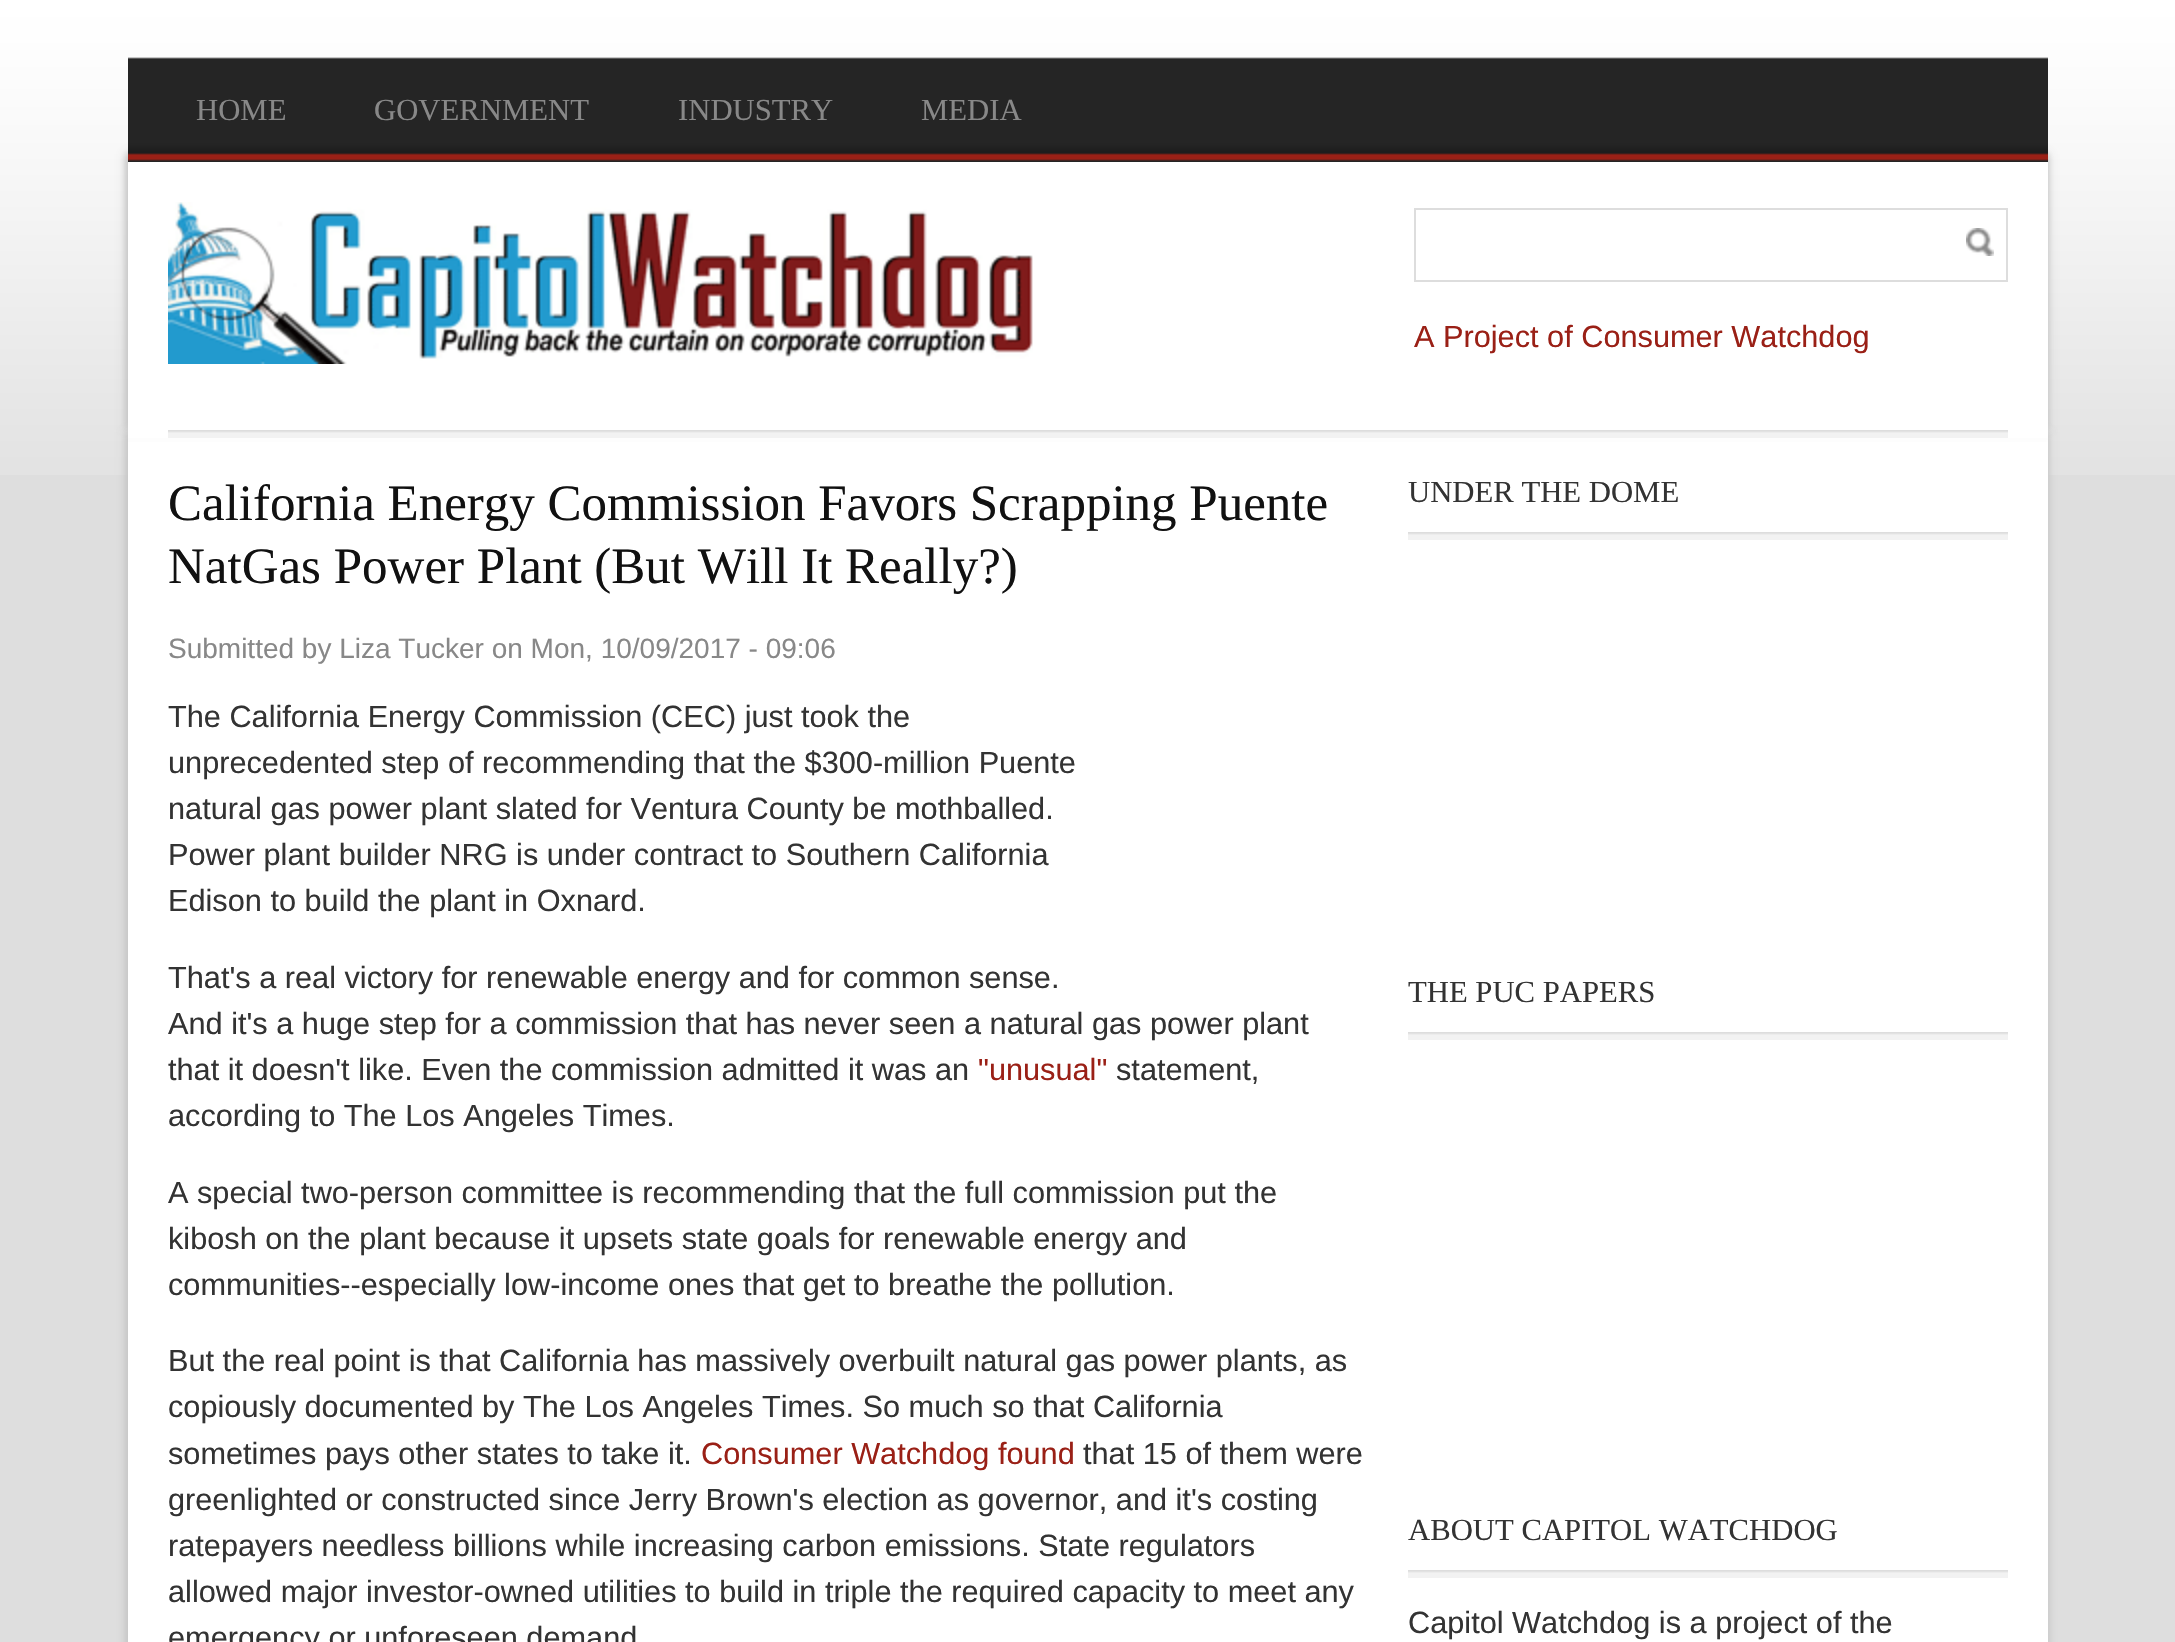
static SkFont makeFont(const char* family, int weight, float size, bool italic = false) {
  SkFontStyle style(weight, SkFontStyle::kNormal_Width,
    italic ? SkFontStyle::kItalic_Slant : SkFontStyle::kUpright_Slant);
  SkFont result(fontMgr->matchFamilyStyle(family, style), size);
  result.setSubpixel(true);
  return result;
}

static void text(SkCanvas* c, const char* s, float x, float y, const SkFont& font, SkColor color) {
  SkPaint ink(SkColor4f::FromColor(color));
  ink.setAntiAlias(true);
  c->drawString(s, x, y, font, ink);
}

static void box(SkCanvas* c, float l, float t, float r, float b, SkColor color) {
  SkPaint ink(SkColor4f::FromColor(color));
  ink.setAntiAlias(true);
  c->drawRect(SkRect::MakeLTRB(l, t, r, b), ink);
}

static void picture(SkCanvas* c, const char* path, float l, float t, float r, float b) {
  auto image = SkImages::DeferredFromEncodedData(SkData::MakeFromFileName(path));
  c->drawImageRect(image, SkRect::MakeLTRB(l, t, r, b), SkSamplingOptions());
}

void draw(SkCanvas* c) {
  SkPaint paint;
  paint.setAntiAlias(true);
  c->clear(0xffdedede);
  picture(c, "img_01.png", 0, 0, 2175, 475);
  paint.setColor(0xffc5c5c5);
  paint.setMaskFilter(SkMaskFilter::MakeBlur(kNormal_SkBlurStyle, 4));
  c->drawRect(SkRect::MakeLTRB(126, 432, 2046, 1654), paint);
  paint.setMaskFilter(nullptr);
  paint.setMaskFilter(SkMaskFilter::MakeBlur(kNormal_SkBlurStyle, 4));
  c->drawRect(SkRect::MakeLTRB(128, 432, 2048, 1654), paint);
  paint.setMaskFilter(nullptr);
  box(c, 128, 438, 2048, 1642, 0xffffffff);
  paint.setMaskFilter(SkMaskFilter::MakeBlur(kNormal_SkBlurStyle, 4));
  c->drawRect(SkRect::MakeLTRB(126, 154, 2046, 430), paint);
  paint.setMaskFilter(nullptr);
  paint.setMaskFilter(SkMaskFilter::MakeBlur(kNormal_SkBlurStyle, 4));
  c->drawRect(SkRect::MakeLTRB(128, 154, 2048, 430), paint);
  paint.setMaskFilter(nullptr);
  picture(c, "img_02.png", 128, 57, 2048, 162);
  SkFont face1 = makeFont("Liberation Serif", 400, 30.7f);
  text(c, "HOME", 196, 120, face1, 0xff888888);
  text(c, "GOVERNMENT", 374, 120, face1, 0xff888888);
  text(c, "INDUSTRY", 678, 120, face1, 0xff888888);
  text(c, "MEDIA", 921, 120, face1, 0xff888888);
  box(c, 128, 162, 2048, 438, 0xffffffff);
  picture(c, "img_03.png", 168, 430, 2008, 438);
  picture(c, "img_04.png", 168, 202, 1033, 364);
  paint.setStyle(SkPaint::kStroke_Style);
  paint.setStrokeWidth(2);
  paint.setColor(0xffdddddd);
  c->drawRect(SkRect::MakeLTRB(1415, 209, 2007, 281), paint);
  picture(c, "img_05.png", 1966, 228, 1994, 256);
  SkFont face2 = makeFont("Liberation Sans", 400, 30.7f);
  text(c, "A Project of Consumer Watchdog", 1414, 347, face2, 0xff9a2016);
  SkFont face3 = makeFont("Liberation Serif", 400, 51);
  text(c, "California Energy Commission Favors Scrapping Puente", 168, 520, face3, 0xff111111);
  text(c, "NatGas Power Plant (But Will It Really?)", 168, 583, face3, 0xff111111);
  SkFont face4 = makeFont("Liberation Sans", 400, 28);
  text(c, "Submitted by Liza Tucker on Mon, 10/09/2017 - 09:06", 168, 658, face4, 0xff888888);
  text(c, "The California Energy Commission (CEC) just took the", 168, 727, face2, 0xff333333);
  text(c, "unprecedented step of recommending that the $300-million Puente", 168, 773, face2, 0xff333333);
  text(c, "natural gas power plant slated for Ventura County be mothballed.", 168, 819, face2, 0xff333333);
  text(c, "Power plant builder NRG is under contract to Southern California", 168, 865, face2, 0xff333333);
  text(c, "Edison to build the plant in Oxnard.", 168, 911, face2, 0xff333333);
  text(c, "That's a real victory for renewable energy and for common sense.", 168, 988, face2, 0xff333333);
  text(c, "And it's a huge step for a commission that has never seen a natural gas power plant", 168, 1034, face2, 0xff333333);
  text(c, "that it doesn't like. Even the commission admitted it was an", 168, 1080, face2, 0xff333333);
  text(c, "\"unusual\"", 978, 1080, face2, 0xff9a2016);
  text(c, "statement,", 1116, 1080, face2, 0xff333333);
  text(c, "according to The Los Angeles Times.", 168, 1126, face2, 0xff333333);
  text(c, "A special two-person committee is recommending that the full commission put the", 168, 1203, face2, 0xff333333);
  text(c, "kibosh on the plant because it upsets state goals for renewable energy and", 168, 1249, face2, 0xff333333);
  text(c, "communities--especially low-income ones that get to breathe the pollution.", 168, 1295, face2, 0xff333333);
  text(c, "But the real point is that California has massively overbuilt natural gas power plants, as", 168, 1371, face2, 0xff333333);
  text(c, "copiously documented by The Los Angeles Times. So much so that California", 168, 1417, face2, 0xff333333);
  text(c, "sometimes pays other states to take it.", 168, 1464, face2, 0xff333333);
  text(c, "Consumer Watchdog found", 701, 1464, face2, 0xff9a2016);
  text(c, "that 15 of them were", 1083, 1464, face2, 0xff333333);
  text(c, "greenlighted or constructed since Jerry Brown's election as governor, and it's costing", 168, 1510, face2, 0xff333333);
  text(c, "ratepayers needless billions while increasing carbon emissions. State regulators", 168, 1556, face2, 0xff333333);
  text(c, "allowed major investor-owned utilities to build in triple the required capacity to meet any", 168, 1602, face2, 0xff333333);
  text(c, "emergency or unforeseen demand", 168, 1648, face2, 0xff333333);
  picture(c, "img_06.png", 1408, 532, 2008, 540);
  text(c, "UNDER THE DOME", 1408, 502, face1, 0xff333333);
  picture(c, "img_06.png", 1408, 1032, 2008, 1040);
  text(c, "THE PUC PAPERS", 1408, 1002, face1, 0xff333333);
  picture(c, "img_06.png", 1408, 1570, 2008, 1578);
  text(c, "ABOUT CAPITOL WATCHDOG", 1408, 1540, face1, 0xff333333);
  text(c, "Capitol Watchdog is a project of the", 1408, 1633, face2, 0xff333333);
}
